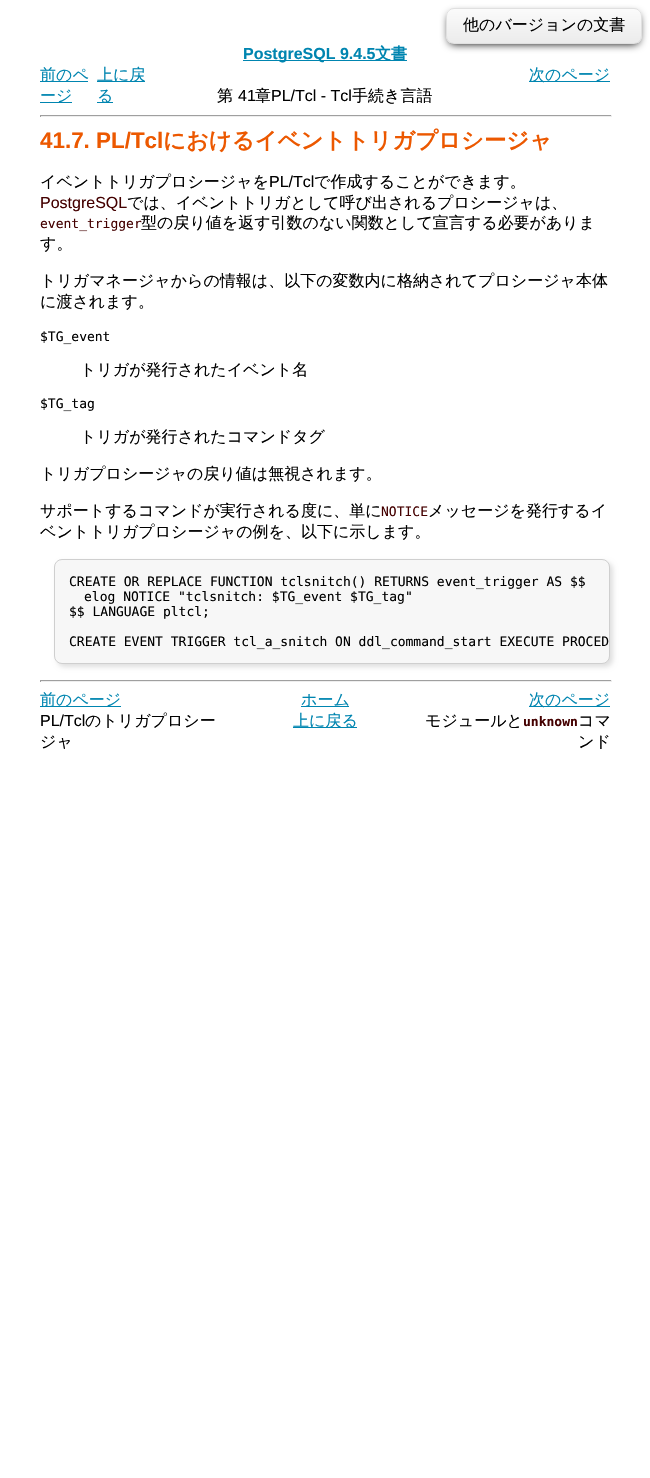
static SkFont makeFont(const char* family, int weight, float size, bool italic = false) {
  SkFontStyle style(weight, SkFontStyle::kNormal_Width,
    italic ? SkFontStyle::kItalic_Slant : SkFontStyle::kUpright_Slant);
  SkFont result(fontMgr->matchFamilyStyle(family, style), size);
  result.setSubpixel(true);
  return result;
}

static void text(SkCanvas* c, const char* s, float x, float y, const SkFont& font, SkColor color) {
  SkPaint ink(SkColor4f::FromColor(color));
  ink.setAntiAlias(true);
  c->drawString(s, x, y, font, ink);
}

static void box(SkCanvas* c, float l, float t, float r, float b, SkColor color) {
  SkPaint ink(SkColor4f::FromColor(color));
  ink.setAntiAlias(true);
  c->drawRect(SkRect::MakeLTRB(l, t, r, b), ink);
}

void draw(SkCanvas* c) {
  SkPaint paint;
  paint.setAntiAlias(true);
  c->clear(0xffffffff);
  paint.setColor(0xff000000);
  paint.setMaskFilter(SkMaskFilter::MakeBlur(kNormal_SkBlurStyle, 4));
  c->drawRoundRect(SkRect::MakeLTRB(449, 14, 639, 44), 5, 5, paint);
  paint.setMaskFilter(nullptr);
  c->save();
  c->clipPath(SkPathBuilder().moveTo(454, 8).lineTo(634, 8).cubicTo(638.5f, 8, 642, 11.5f, 642, 16).lineTo(642, 36).cubicTo(642, 40.5f, 638.5f, 44, 634, 44).lineTo(454, 44).cubicTo(449.5f, 44, 446, 40.5f, 446, 36).lineTo(446, 16).cubicTo(446, 11.5f, 449.5f, 8, 454, 8).close().detach(), true);
  {
    const SkColor colors[] = {0xfffbfbfb, 0xffebebeb};
    const float stops[] = {0, 1};
    const SkPoint ends[] = {{544, 9}, {544, 43}};
    paint.setShader(SkGradientShader::MakeLinear(ends, colors, stops, 2, SkTileMode::kClamp));
    paint.setAlpha(255);
  }
  c->drawRect(SkRect::MakeLTRB(446, 9, 642, 43), paint);
  c->restore();
  paint.setStyle(SkPaint::kStroke_Style);
  paint.setStrokeWidth(1);
  paint.setShader(nullptr);
  paint.setColor(0xffe0e0e0);
  c->drawRoundRect(SkRect::MakeLTRB(446.5f, 8.5f, 641.5f, 43.5f), 7.5f, 7.5f, paint);
  SkFont face1 = makeFont("WenQuanYi Zen Hei", 500, 16);
  text(c, "他のバージョンの文書", 463, 30, face1, 0xff000000);
  box(c, 243, 60, 407, 61, 0xff0085b0);
  SkFont face2 = makeFont("Liberation Sans", 700, 16);
  text(c, "PostgreSQL 9.4.5", 243, 59, face2, 0xff0085b0);
  SkFont face3 = makeFont("WenQuanYi Zen Hei", 700, 16);
  text(c, "文書", 375, 59, face3, 0xff0085b0);
  box(c, 40, 81, 88, 82, 0xff0085b0);
  text(c, "前のペ", 40, 80, face1, 0xff0085b0);
  box(c, 40, 102, 72, 103, 0xff0085b0);
  text(c, "ージ", 40, 101, face1, 0xff0085b0);
  box(c, 97, 81, 145, 82, 0xff0085b0);
  text(c, "上に戻", 97, 80, face1, 0xff0085b0);
  box(c, 97, 102, 113, 103, 0xff0085b0);
  text(c, "る", 97, 101, face1, 0xff0085b0);
  box(c, 529, 81, 610, 82, 0xff0085b0);
  text(c, "次のページ", 529, 80, face1, 0xff0085b0);
  text(c, "第", 217, 101, face1, 0xff000000);
  SkFont face4 = makeFont("Liberation Sans", 400, 16);
  text(c, "41", 238, 101, face4, 0xff000000);
  text(c, "章", 255, 101, face1, 0xff000000);
  text(c, "PL/Tcl - Tcl", 271, 101, face4, 0xff000000);
  text(c, "手続き言語", 352, 101, face1, 0xff000000);
  box(c, 40, 115, 612, 116, 0xff9f9f9f);
  box(c, 611, 115, 612, 117, 0xffeeeeee);
  box(c, 40, 116, 612, 117, 0xffeeeeee);
  box(c, 40, 115, 41, 117, 0xff9f9f9f);
  SkFont face5 = makeFont("Liberation Sans", 700, 22.4f);
  text(c, "41.7. PL/Tcl", 40, 148, face5, 0xffec5800);
  SkFont face6 = makeFont("WenQuanYi Zen Hei", 700, 22.4f);
  text(c, "におけるイベントトリガプロシージャ", 163, 148, face6, 0xffec5800);
  text(c, "イベントトリガプロシージャを", 40, 187, face1, 0xff000000);
  text(c, "PL/Tcl", 269, 187, face4, 0xff000000);
  text(c, "で作成することができます。", 314, 187, face1, 0xff000000);
  text(c, "PostgreSQL", 40, 208, face4, 0xff440000);
  text(c, "では、イベントトリガとして呼び出されるプロシージャは、", 127, 208, face1, 0xff000000);
  SkFont face7 = makeFont("DejaVu Sans Mono", 400, 13);
  text(c, "event_trigger", 40, 228, face7, 0xff440000);
  text(c, "型の戻り値を返す引数のない関数として宣言する必要がありま", 141, 228, face1, 0xff000000);
  text(c, "す。", 40, 249, face1, 0xff000000);
  text(c, "トリガマネージャからの情報は、以下の変数内に格納されてプロシージャ本体", 40, 286, face1, 0xff000000);
  text(c, "に渡されます。", 40, 307, face1, 0xff000000);
  text(c, "$TG_event", 40, 341, face7, 0xff000000);
  text(c, "トリガが発行されたイベント名", 80, 375, face1, 0xff000000);
  text(c, "$TG_tag", 40, 408, face7, 0xff000000);
  text(c, "トリガが発行されたコマンドタグ", 80, 442, face1, 0xff000000);
  text(c, "トリガプロシージャの戻り値は無視されます。", 40, 479, face1, 0xff000000);
  text(c, "サポートするコマンドが実行される度に、単に", 40, 516, face1, 0xff000000);
  text(c, "NOTICE", 381, 516, face7, 0xff440000);
  text(c, "メッセージを発行するイ", 428, 516, face1, 0xff000000);
  text(c, "ベントトリガプロシージャの例を、以下に示します。", 40, 537, face1, 0xff000000);
  paint.setStyle(SkPaint::kFill_Style);
  paint.setColor(0xffdfdfdf);
  paint.setMaskFilter(SkMaskFilter::MakeBlur(kNormal_SkBlurStyle, 2.5f));
  c->drawRoundRect(SkRect::MakeLTRB(57, 562, 613, 667), 8, 8, paint);
  paint.setMaskFilter(nullptr);
  paint.setColor(0xfff7f7f7);
  c->drawRoundRect(SkRect::MakeLTRB(54.5f, 559.5f, 609.5f, 663.5f), 7.5f, 7.5f, paint);
  paint.setStyle(SkPaint::kStroke_Style);
  paint.setColor(0xffcfcfcf);
  c->drawRoundRect(SkRect::MakeLTRB(54.5f, 559.5f, 609.5f, 663.5f), 7.5f, 7.5f, paint);
  text(c, "CREATE OR REPLACE FUNCTION tclsnitch() RETURNS event_trigger AS $$", 69, 586, face7, 0xff000000);
  text(c, "elog NOTICE \"tclsnitch: $TG_event $TG_tag\"", 84, 601, face7, 0xff000000);
  text(c, "$$ LANGUAGE pltcl;", 69, 616, face7, 0xff000000);
  text(c, "CREATE EVENT TRIGGER tcl_a_snitch ON ddl_command_start EXECUTE PROCED", 69, 646, face7, 0xff000000);
  box(c, 40, 680, 612, 681, 0xff9f9f9f);
  box(c, 611, 680, 612, 682, 0xffeeeeee);
  box(c, 40, 681, 612, 682, 0xffeeeeee);
  box(c, 40, 680, 41, 682, 0xff9f9f9f);
  box(c, 40, 706, 121, 707, 0xff0085b0);
  text(c, "前のページ", 40, 705, face1, 0xff0085b0);
  box(c, 301, 706, 349, 707, 0xff0085b0);
  text(c, "ホーム", 301, 705, face1, 0xff0085b0);
  box(c, 529, 706, 610, 707, 0xff0085b0);
  text(c, "次のページ", 529, 705, face1, 0xff0085b0);
  text(c, "PL/Tcl", 40, 726, face4, 0xff000000);
  text(c, "のトリガプロシー", 85, 726, face1, 0xff000000);
  text(c, "ジャ", 40, 747, face1, 0xff000000);
  box(c, 293, 727, 357, 728, 0xff0085b0);
  text(c, "上に戻る", 293, 726, face1, 0xff0085b0);
  text(c, "モジュールと", 425, 726, face1, 0xff000000);
  SkFont face8 = makeFont("DejaVu Sans Mono", 700, 13);
  text(c, "unknown", 523, 726, face8, 0xff440000);
  text(c, "コマ", 578, 726, face1, 0xff000000);
  text(c, "ンド", 578, 747, face1, 0xff000000);
}
